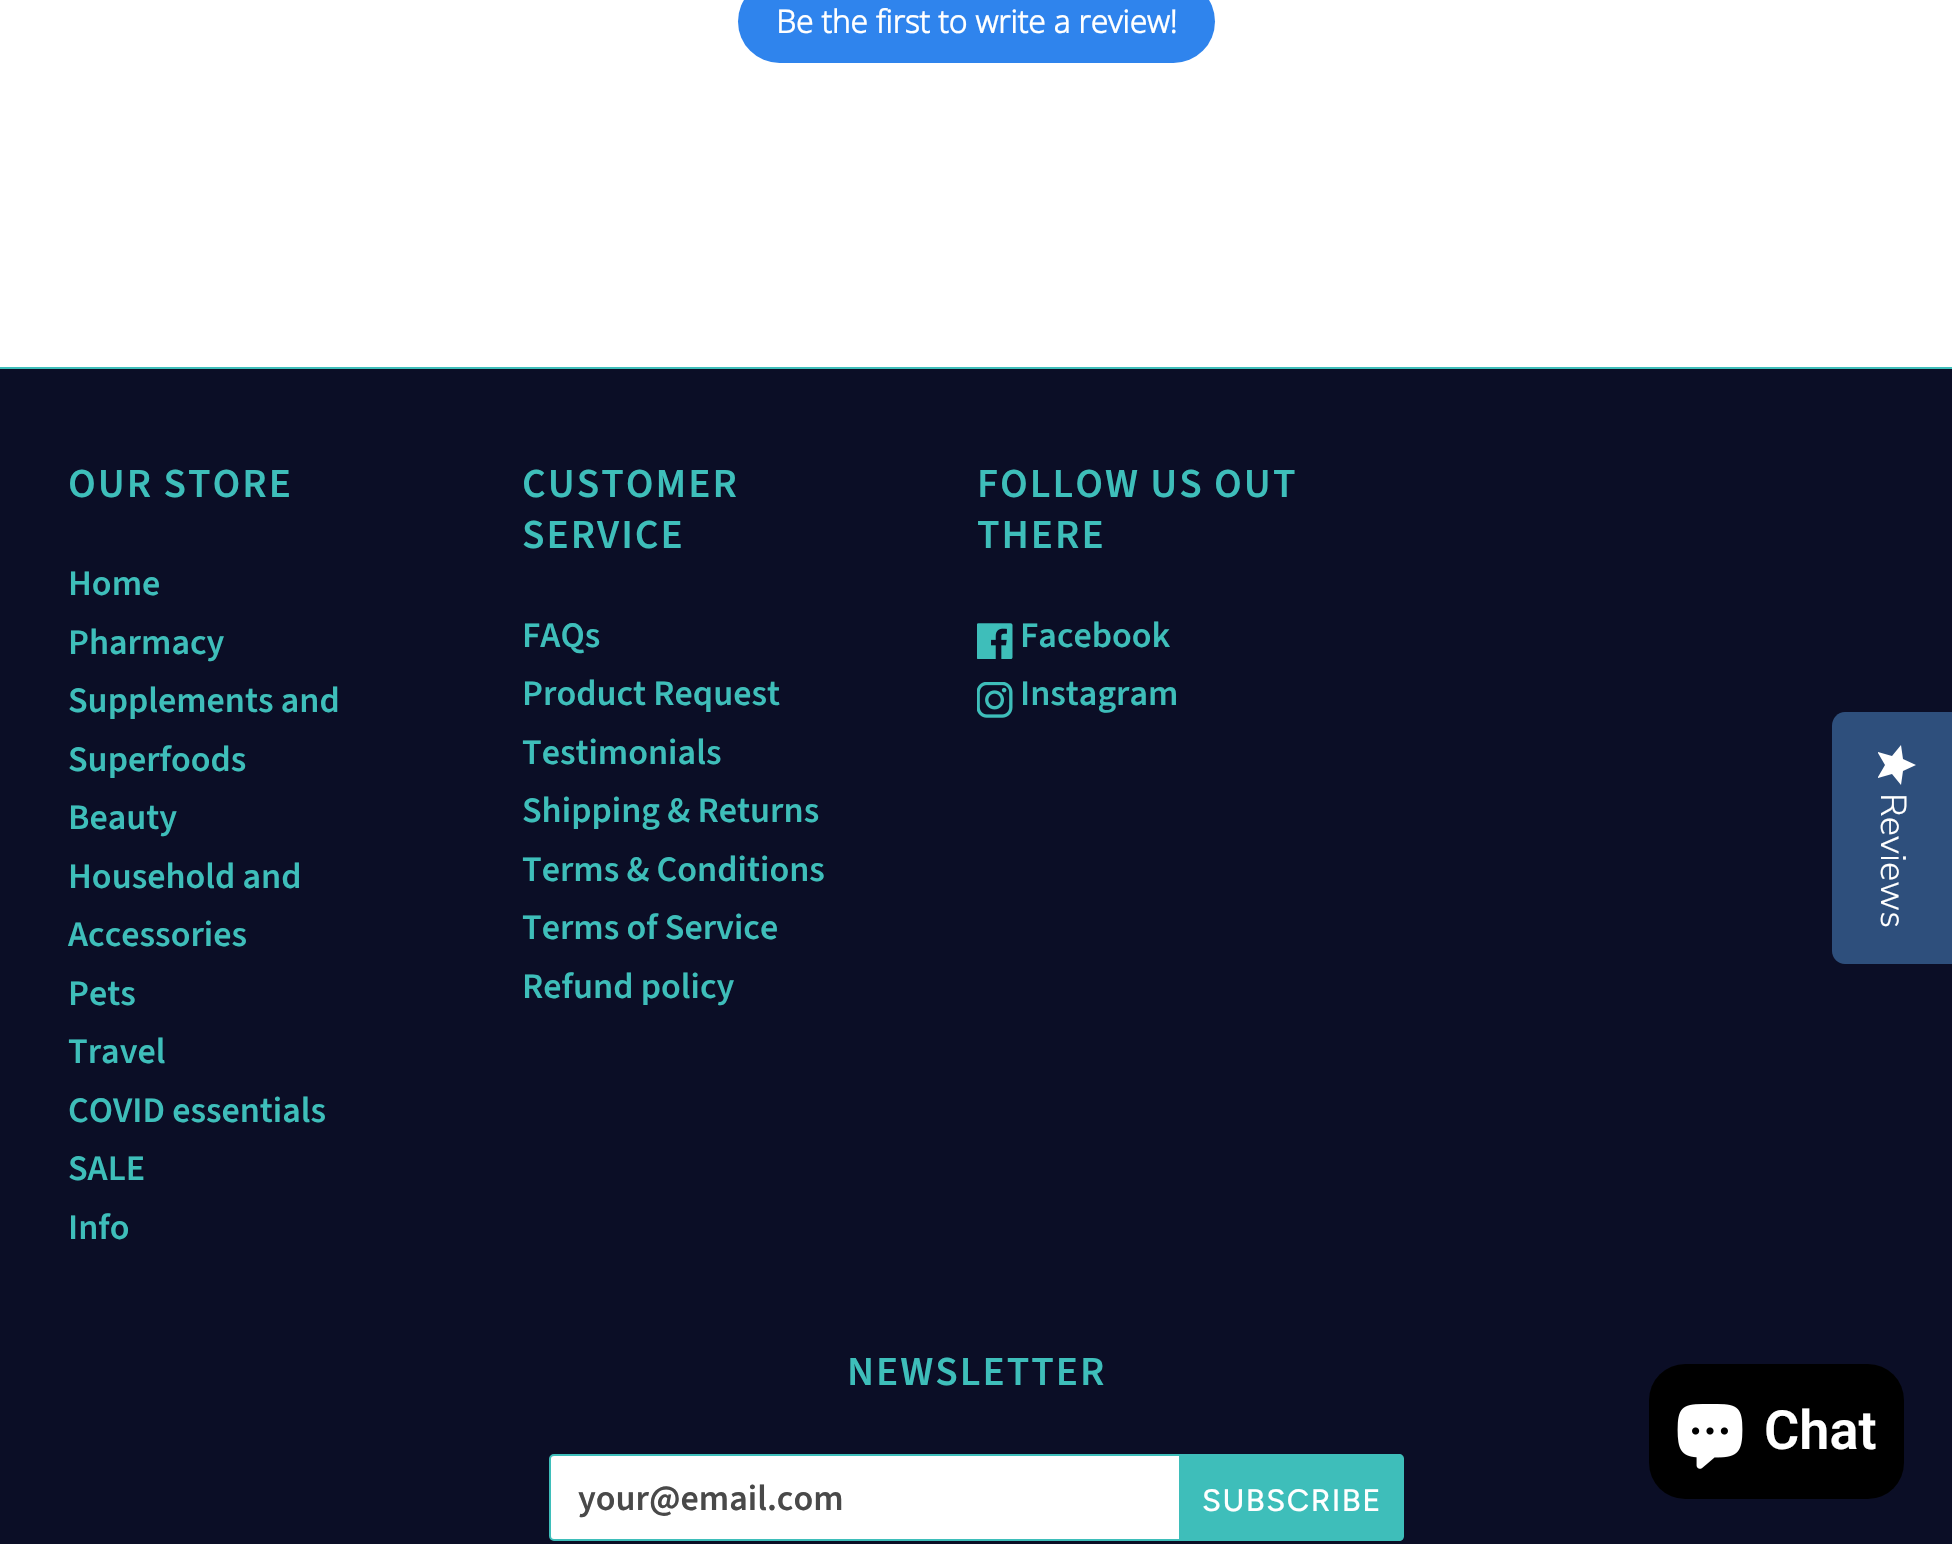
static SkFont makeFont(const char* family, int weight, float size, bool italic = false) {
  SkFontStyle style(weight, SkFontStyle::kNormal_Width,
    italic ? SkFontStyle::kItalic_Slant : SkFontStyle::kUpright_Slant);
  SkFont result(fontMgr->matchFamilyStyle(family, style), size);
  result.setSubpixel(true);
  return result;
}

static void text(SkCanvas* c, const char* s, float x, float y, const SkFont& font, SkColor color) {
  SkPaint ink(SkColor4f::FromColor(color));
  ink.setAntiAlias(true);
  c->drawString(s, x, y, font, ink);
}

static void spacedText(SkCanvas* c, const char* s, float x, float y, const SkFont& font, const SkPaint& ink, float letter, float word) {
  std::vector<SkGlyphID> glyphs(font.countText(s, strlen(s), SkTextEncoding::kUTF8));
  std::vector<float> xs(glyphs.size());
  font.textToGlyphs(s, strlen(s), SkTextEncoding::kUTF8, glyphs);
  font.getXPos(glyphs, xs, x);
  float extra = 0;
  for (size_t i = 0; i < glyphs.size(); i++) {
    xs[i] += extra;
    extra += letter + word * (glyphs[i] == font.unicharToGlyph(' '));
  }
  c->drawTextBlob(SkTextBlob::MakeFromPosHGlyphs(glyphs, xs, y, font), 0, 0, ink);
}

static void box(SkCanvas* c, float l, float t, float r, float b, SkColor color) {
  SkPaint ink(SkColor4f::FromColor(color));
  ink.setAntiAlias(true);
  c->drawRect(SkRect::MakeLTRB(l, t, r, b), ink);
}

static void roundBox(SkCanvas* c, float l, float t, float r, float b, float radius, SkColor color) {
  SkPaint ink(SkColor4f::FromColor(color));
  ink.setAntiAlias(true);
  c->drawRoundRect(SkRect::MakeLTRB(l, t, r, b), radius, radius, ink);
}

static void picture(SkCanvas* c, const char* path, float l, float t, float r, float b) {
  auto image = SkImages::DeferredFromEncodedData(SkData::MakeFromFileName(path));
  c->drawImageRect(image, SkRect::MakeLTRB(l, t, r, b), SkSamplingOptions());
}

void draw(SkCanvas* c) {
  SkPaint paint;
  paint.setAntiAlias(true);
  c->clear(0xffffffff);
  roundBox(c, 738, -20, 1215, 63, 41.5f, 0xff2f84ed);
  SkFont face1 = makeFont("Open Sans", 700, 31.5f);
  text(c, "Be the first to write a review!", 776, 33, face1, 0xffffffff);
  box(c, 0, 369, 1952, 1544, 0xff0b0e26);
  box(c, 0, 367, 1952, 369, 0xff3ebeba);
  SkFont face2 = makeFont("Source Sans Pro", 600, 41.25f);
  paint.setColor(0xff3ebeba);
  spacedText(c, "OUR STORE", 68, 497, face2, paint, 2, 0);
  SkFont face3 = makeFont("Source Sans Pro", 600, 36);
  text(c, "Home", 68, 595, face3, 0xff3ebeba);
  text(c, "Pharmacy", 68, 654, face3, 0xff3ebeba);
  text(c, "Supplements and", 68, 712, face3, 0xff3ebeba);
  text(c, "Superfoods", 68, 771, face3, 0xff3ebeba);
  text(c, "Beauty", 68, 829, face3, 0xff3ebeba);
  text(c, "Household and", 68, 888, face3, 0xff3ebeba);
  text(c, "Accessories", 68, 946, face3, 0xff3ebeba);
  text(c, "Pets", 68, 1005, face3, 0xff3ebeba);
  text(c, "Travel", 68, 1063, face3, 0xff3ebeba);
  text(c, "COVID essentials", 68, 1122, face3, 0xff3ebeba);
  text(c, "SALE", 68, 1180, face3, 0xff3ebeba);
  text(c, "Info", 68, 1239, face3, 0xff3ebeba);
  spacedText(c, "CUSTOMER", 522, 497, face2, paint, 2, 0);
  spacedText(c, "SERVICE", 522, 548, face2, paint, 2, 0);
  text(c, "FAQs", 522, 647, face3, 0xff3ebeba);
  text(c, "Product Request", 522, 705, face3, 0xff3ebeba);
  text(c, "Testimonials", 522, 764, face3, 0xff3ebeba);
  text(c, "Shipping & Returns", 522, 822, face3, 0xff3ebeba);
  text(c, "Terms & Conditions", 522, 881, face3, 0xff3ebeba);
  text(c, "Terms of Service", 522, 939, face3, 0xff3ebeba);
  text(c, "Refund policy", 522, 998, face3, 0xff3ebeba);
  spacedText(c, "FOLLOW US OUT", 977, 497, face2, paint, 2, 0);
  spacedText(c, "THERE", 977, 548, face2, paint, 2, 0);
  picture(c, "img_01.png", 977, 623, 1013, 659);
  text(c, "Facebook", 1020, 647, face3, 0xff3ebeba);
  picture(c, "img_02.png", 977, 682, 1013, 718);
  text(c, "Instagram", 1020, 705, face3, 0xff3ebeba);
  spacedText(c, "NEWSLETTER", 847, 1385, face2, paint, 2, 0);
  paint.setColor(0xffffffff);
  c->drawRoundRect(SkRect::MakeLTRB(550, 1455, 1313, 1540), 4, 4, paint);
  paint.setStyle(SkPaint::kStroke_Style);
  paint.setStrokeWidth(2);
  paint.setColor(0xff3ebeba);
  c->drawRoundRect(SkRect::MakeLTRB(550, 1455, 1313, 1540), 4, 4, paint);
  text(c, "your@email.com", 578, 1510, face3, 0xff494949);
  paint.setStyle(SkPaint::kFill_Style);
  c->drawPath(SkPathBuilder().moveTo(1179, 1454).lineTo(1399, 1454).cubicTo(1402, 1454, 1404, 1456, 1404, 1459).lineTo(1404, 1536).cubicTo(1404, 1539, 1402, 1541, 1399, 1541).lineTo(1179, 1541).close().detach(), paint);
  SkFont face4 = makeFont("Figtree", 500, 31);
  paint.setColor(0xffffffff);
  spacedText(c, "SUBSCRIBE", 1202, 1511, face4, paint, 1.5f, 0);
  paint.setColor(0xff2e4f7c);
  c->drawPath(SkPathBuilder().moveTo(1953, 712).lineTo(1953, 964).lineTo(1845, 964).cubicTo(1838, 964, 1832, 958, 1832, 951).lineTo(1832, 726).cubicTo(1832, 718, 1838, 712, 1845, 712).close().detach(), paint);
  {
    const SkColor colors[] = {0xffffffff, 0xffeaeaea};
    const float stops[] = {1, 1};
    const SkPoint ends[] = {{1916, 745}, {1916, 785}};
    paint.setShader(SkGradientShader::MakeLinear(ends, colors, stops, 2, SkTileMode::kClamp));
    paint.setAlpha(255);
  }
  c->drawPath(SkPathBuilder().moveTo(1885, 765).lineTo(1878, 753).lineTo(1878, 752).lineTo(1892, 756).lineTo(1901, 745).lineTo(1903, 759).lineTo(1916, 765).lineTo(1903, 771).lineTo(1901, 785).lineTo(1892, 774).lineTo(1878, 778).lineTo(1878, 777).close().detach(), paint);
  SkFont face5 = makeFont("Nunito Sans", 300, 36);
  c->save();
  c->rotate(90, 1881, 793);
  text(c, "Reviews", 1881, 793, face5, 0xffffffff);
  c->restore();
  roundBox(c, 1649, 1364, 1904, 1499, 36, 0xff000000);
  picture(c, "img_03.png", 1677, 1404, 1743, 1469);
  SkFont face6 = makeFont("Roboto", 600, 54);
  text(c, "Chat", 1764, 1449, face6, 0xffffffff);
}
